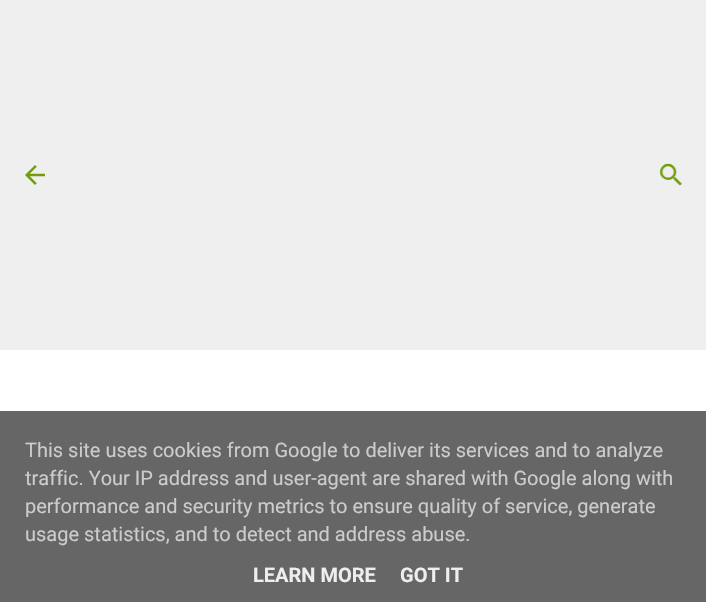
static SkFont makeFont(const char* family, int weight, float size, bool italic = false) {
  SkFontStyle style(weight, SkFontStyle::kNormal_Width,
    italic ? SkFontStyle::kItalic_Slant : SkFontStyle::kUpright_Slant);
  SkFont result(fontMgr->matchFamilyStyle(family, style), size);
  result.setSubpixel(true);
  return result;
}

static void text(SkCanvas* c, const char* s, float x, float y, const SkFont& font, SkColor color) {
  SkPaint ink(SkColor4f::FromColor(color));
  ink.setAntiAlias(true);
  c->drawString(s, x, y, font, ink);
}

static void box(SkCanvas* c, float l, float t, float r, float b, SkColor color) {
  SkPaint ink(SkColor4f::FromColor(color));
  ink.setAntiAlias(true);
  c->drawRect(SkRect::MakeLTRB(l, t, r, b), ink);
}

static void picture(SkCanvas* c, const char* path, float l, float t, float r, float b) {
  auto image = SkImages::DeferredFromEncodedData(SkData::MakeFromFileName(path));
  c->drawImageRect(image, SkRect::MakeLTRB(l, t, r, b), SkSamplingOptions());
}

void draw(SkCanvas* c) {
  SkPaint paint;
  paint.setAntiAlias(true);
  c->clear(0xffffffff);
  box(c, 0, 0, 706, 350, 0xffefefef);
  picture(c, "img_01.png", 25, 165, 45, 185);
  picture(c, "img_02.png", 659, 163, 683, 186);
  box(c, 0, 411, 706, 602, 0xff666666);
  SkFont face1 = makeFont("Roboto", 400, 20);
  text(c, "This site uses cookies from Google to deliver its services and to analyze", 25, 457, face1, 0xffcccccc);
  text(c, "traffic. Your IP address and user-agent are shared with Google along with", 25, 485, face1, 0xffcccccc);
  text(c, "performance and security metrics to ensure quality of service, generate", 25, 513, face1, 0xffcccccc);
  text(c, "usage statistics, and to detect and address abuse.", 25, 541, face1, 0xffcccccc);
  SkFont face2 = makeFont("Roboto", 700, 20);
  text(c, "LEARN MORE", 253, 582, face2, 0xffeeeeee);
  text(c, "GOT IT", 400, 582, face2, 0xffeeeeee);
}
